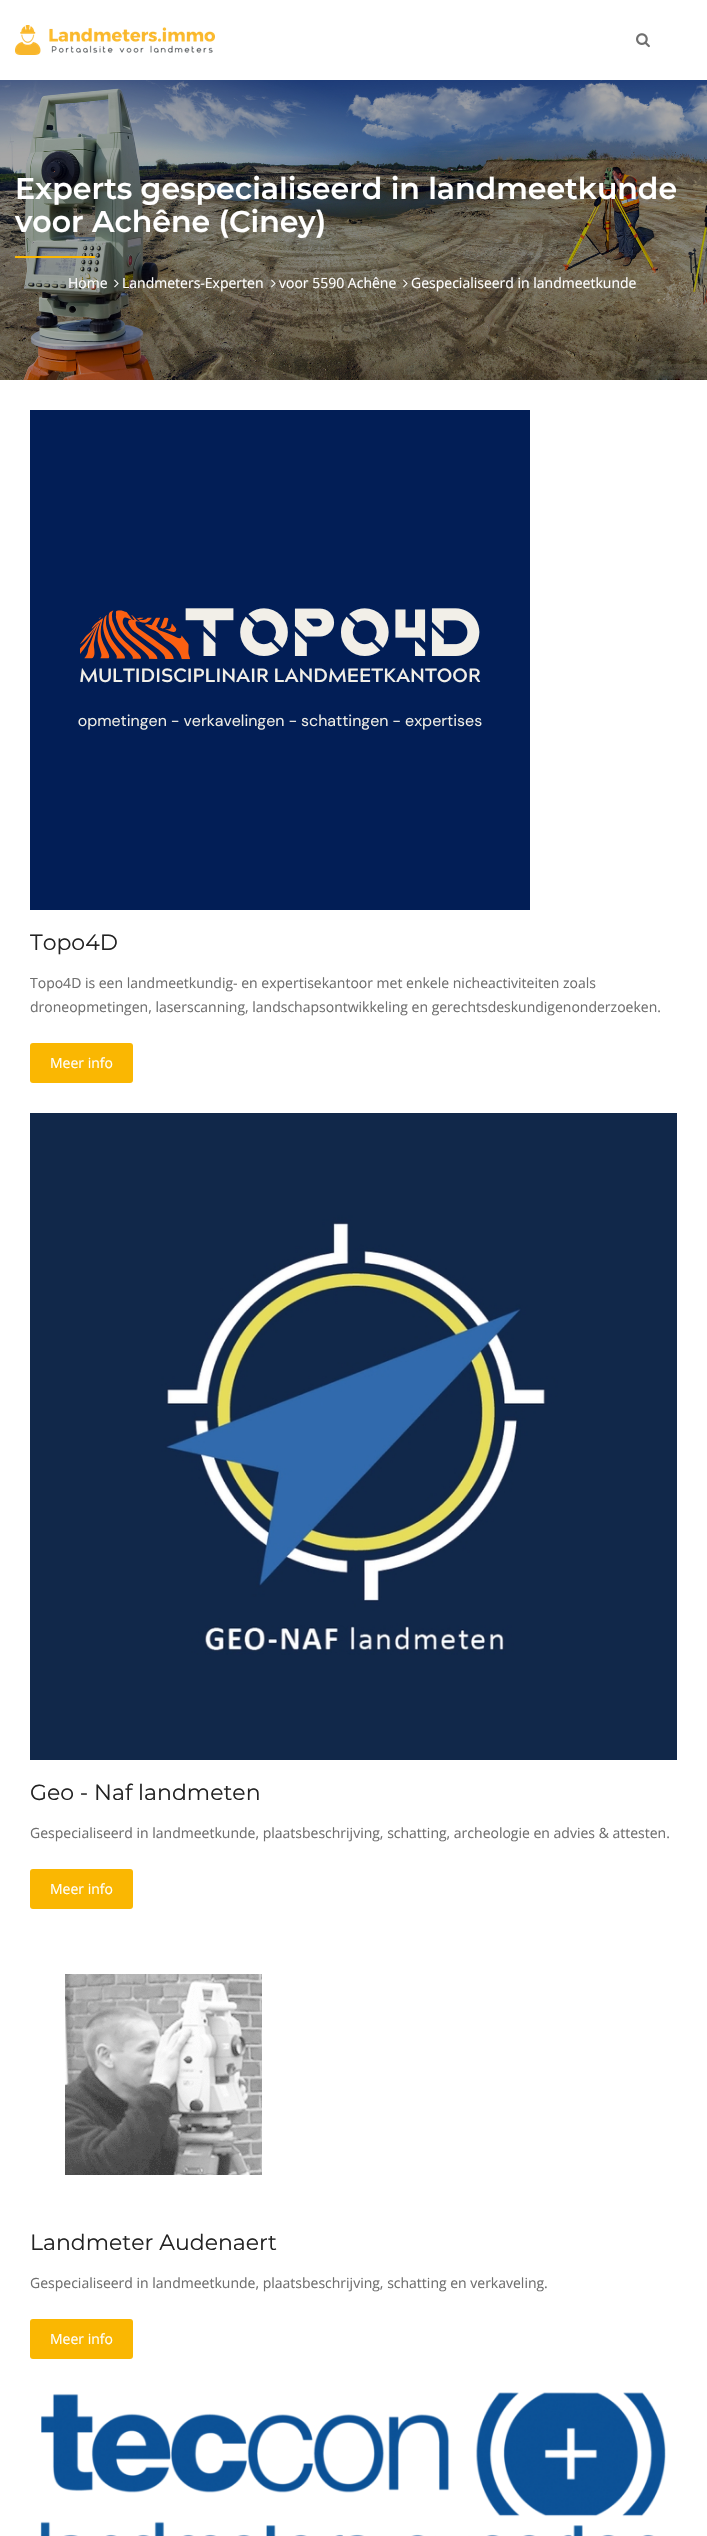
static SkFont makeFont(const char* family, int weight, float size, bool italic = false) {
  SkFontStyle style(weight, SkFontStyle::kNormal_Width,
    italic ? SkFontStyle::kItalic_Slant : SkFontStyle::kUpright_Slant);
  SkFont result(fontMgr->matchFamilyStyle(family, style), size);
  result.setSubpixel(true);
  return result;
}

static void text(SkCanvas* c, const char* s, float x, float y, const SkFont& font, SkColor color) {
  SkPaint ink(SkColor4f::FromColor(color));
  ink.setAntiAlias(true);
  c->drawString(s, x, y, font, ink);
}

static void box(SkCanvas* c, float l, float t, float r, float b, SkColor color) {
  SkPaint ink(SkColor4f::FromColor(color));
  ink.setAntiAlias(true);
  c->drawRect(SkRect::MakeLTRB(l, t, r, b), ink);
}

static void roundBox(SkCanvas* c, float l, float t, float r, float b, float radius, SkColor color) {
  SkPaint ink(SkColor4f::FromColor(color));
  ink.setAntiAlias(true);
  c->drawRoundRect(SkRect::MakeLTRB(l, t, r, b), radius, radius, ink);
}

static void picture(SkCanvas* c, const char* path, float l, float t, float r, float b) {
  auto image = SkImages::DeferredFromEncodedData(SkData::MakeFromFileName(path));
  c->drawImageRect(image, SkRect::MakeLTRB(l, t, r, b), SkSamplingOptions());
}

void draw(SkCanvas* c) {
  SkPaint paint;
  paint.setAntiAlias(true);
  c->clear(0xffffffff);
  picture(c, "img_01.png", 15, 25, 215, 55);
  picture(c, "img_02.png", 636, 33, 650, 48);
  picture(c, "img_03.png", 0, 80, 707, 380);
  SkFont face1 = makeFont("Montserrat", 600, 30);
  text(c, "Experts gespecialiseerd in landmeetkunde", 15, 199, face1, 0xffffffff);
  text(c, "voor Achêne (Ciney)", 15, 232, face1, 0xffffffff);
  box(c, 15, 256, 95, 258, 0xfffab702);
  SkFont face2 = makeFont("Open Sans", 400, 14);
  text(c, "Home", 68, 288, face2, 0xffffffff);
  picture(c, "img_04.png", 114, 279, 119, 288);
  text(c, "Landmeters-Experten", 122, 288, face2, 0xffffffff);
  picture(c, "img_05.png", 271, 279, 276, 288);
  text(c, "voor 5590 Achêne", 279, 288, face2, 0xffffffff);
  picture(c, "img_06.png", 403, 279, 408, 288);
  text(c, "Gespecialiseerd in landmeetkunde", 411, 288, face2, 0xffffffff);
  picture(c, "img_07.png", 30, 410, 530, 910);
  SkFont face3 = makeFont("Montserrat", 400, 22);
  text(c, "Topo4D", 30, 950, face3, 0xff232323);
  text(c, "Topo4D is een landmeetkundig- en expertisekantoor met enkele nicheactiviteiten zoals", 30, 988, face2, 0xff6f6f6f);
  text(c, "droneopmetingen, laserscanning, landschapsontwikkeling en gerechtsdeskundigenonderzoeken.", 30, 1012, face2, 0xff6f6f6f);
  roundBox(c, 30, 1043, 133, 1083, 3, 0xfffab702);
  text(c, "Meer info", 50, 1068, face2, 0xffffffff);
  picture(c, "img_08.png", 30, 1113, 677, 1760);
  text(c, "Geo - Naf landmeten", 30, 1800, face3, 0xff232323);
  text(c, "Gespecialiseerd in landmeetkunde, plaatsbeschrijving, schatting, archeologie en advies & attesten.", 30, 1838, face2, 0xff6f6f6f);
  roundBox(c, 30, 1869, 133, 1909, 3, 0xfffab702);
  text(c, "Meer info", 50, 1894, face2, 0xffffffff);
  picture(c, "img_09.png", 65, 1974, 262, 2175);
  text(c, "Landmeter Audenaert", 30, 2250, face3, 0xff232323);
  text(c, "Gespecialiseerd in landmeetkunde, plaatsbeschrijving, schatting en verkaveling.", 30, 2288, face2, 0xff6f6f6f);
  roundBox(c, 30, 2319, 133, 2359, 3, 0xfffab702);
  text(c, "Meer info", 50, 2344, face2, 0xffffffff);
  picture(c, "img_10.png", 40, 2392, 666, 2536);
}
